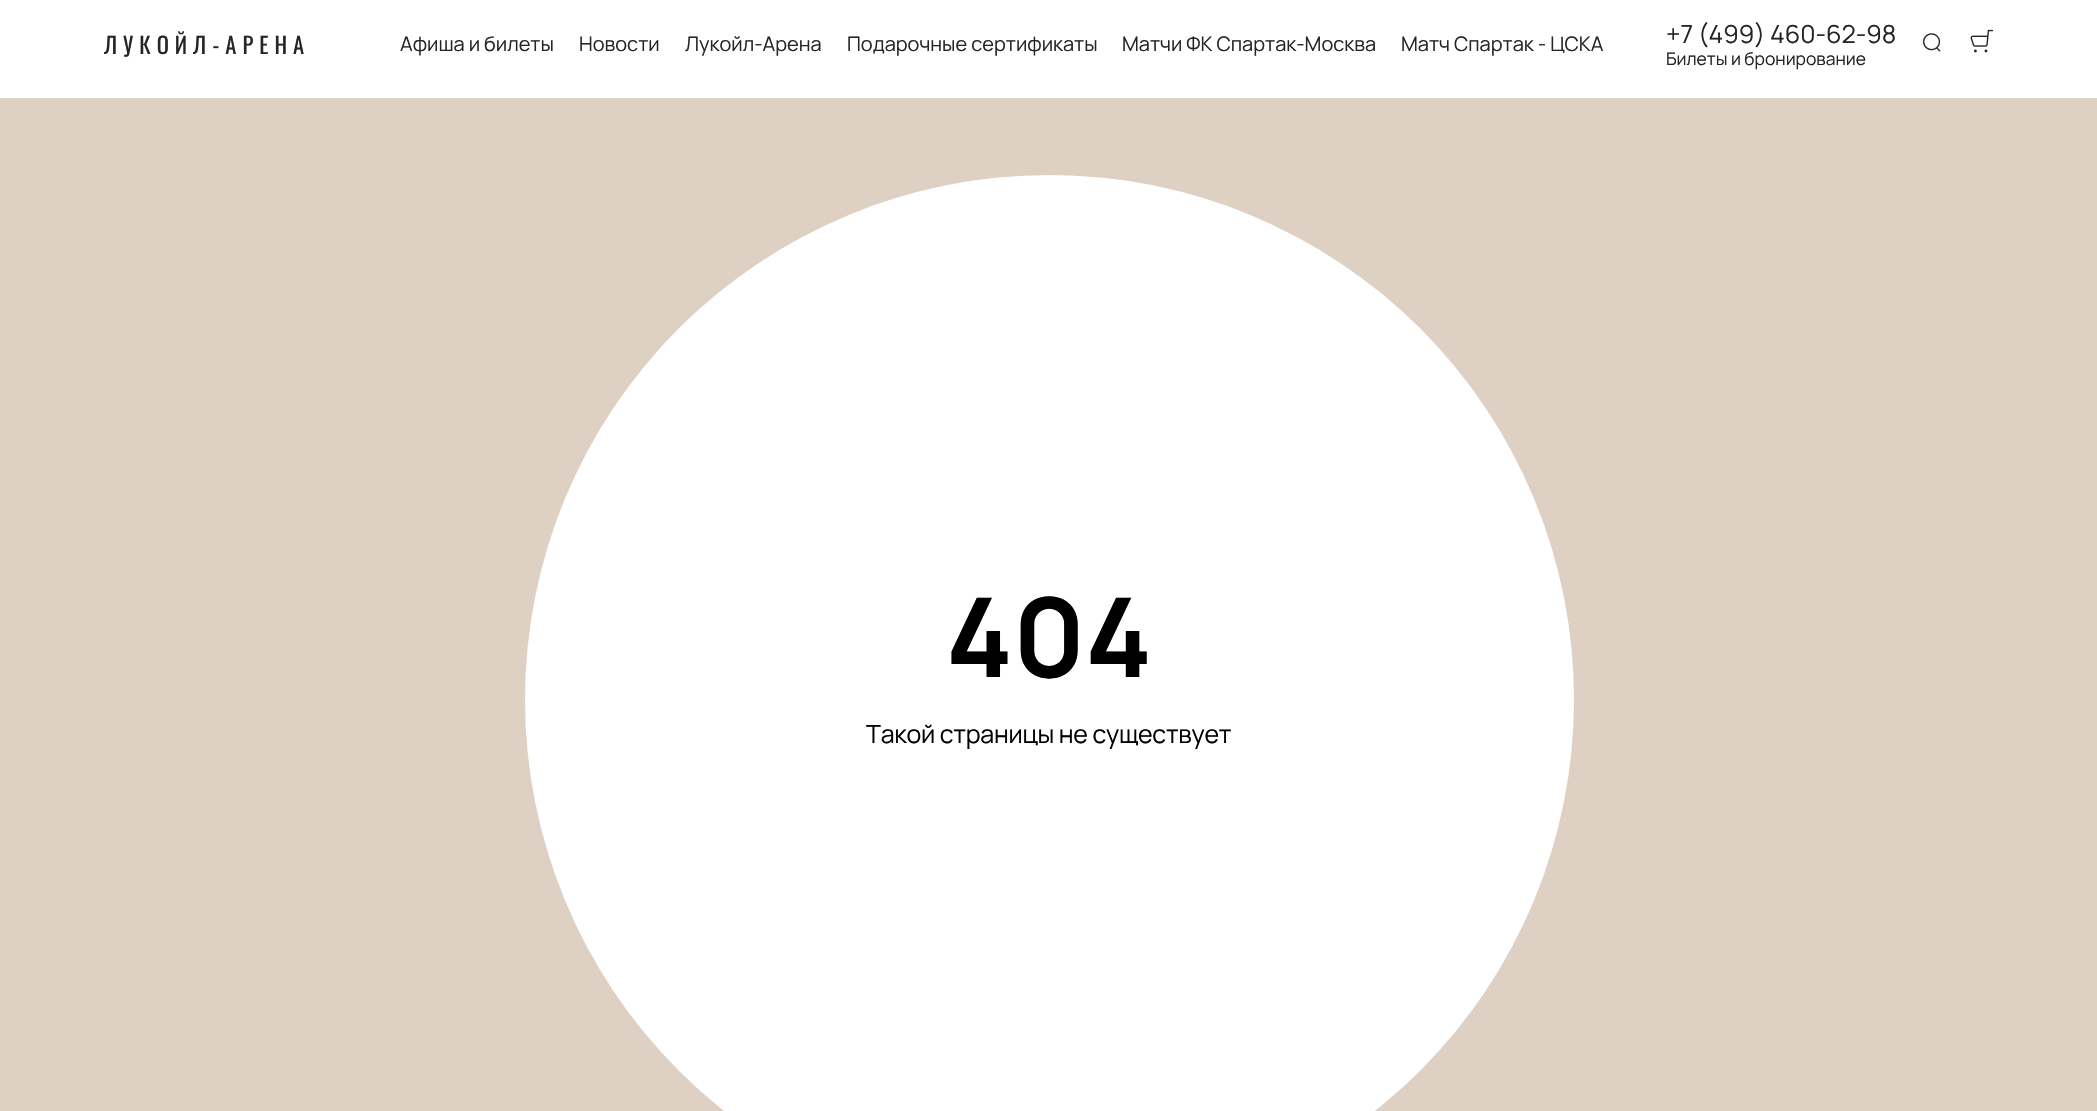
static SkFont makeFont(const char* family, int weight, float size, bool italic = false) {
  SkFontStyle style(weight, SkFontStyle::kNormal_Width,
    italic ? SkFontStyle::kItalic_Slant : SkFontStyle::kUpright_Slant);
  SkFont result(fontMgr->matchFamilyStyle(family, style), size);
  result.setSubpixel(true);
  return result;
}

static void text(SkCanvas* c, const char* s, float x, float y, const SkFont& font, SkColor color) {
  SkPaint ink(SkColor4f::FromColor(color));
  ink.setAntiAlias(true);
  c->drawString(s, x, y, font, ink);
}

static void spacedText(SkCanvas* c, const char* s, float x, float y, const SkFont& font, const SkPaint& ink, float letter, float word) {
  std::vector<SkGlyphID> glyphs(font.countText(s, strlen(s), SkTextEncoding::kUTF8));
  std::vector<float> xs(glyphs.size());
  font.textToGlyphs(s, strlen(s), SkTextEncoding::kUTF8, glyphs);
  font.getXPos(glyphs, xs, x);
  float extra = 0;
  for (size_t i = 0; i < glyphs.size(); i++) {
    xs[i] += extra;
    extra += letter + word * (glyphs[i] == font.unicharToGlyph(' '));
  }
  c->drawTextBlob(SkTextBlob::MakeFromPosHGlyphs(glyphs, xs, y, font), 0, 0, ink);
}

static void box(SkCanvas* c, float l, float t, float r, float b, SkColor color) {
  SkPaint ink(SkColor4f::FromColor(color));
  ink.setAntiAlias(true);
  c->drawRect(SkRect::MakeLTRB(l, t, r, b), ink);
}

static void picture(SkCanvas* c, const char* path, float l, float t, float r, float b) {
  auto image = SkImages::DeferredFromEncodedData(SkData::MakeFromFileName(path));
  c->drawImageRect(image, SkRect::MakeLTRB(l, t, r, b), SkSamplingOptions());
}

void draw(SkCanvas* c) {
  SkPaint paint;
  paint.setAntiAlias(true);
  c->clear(0xffdfd0c4);
  box(c, 0, 0, 2097, 98, 0xffffffff);
  SkFont face1 = makeFont("Oswald", 400, 22.5f);
  paint.setColor(0xff252525);
  spacedText(c, "ЛУКОЙЛ-АРЕНА", 104, 54, face1, paint, 6, 0);
  SkFont face2 = makeFont("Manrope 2", 200, 20);
  text(c, "Афиша и билеты", 400, 51, face2, 0xff252525);
  text(c, "Новости", 579, 51, face2, 0xff252525);
  text(c, "Лукойл-Арена", 685, 51, face2, 0xff252525);
  text(c, "Подарочные сертификаты", 847, 51, face2, 0xff252525);
  text(c, "Матчи ФК Спартак-Москва", 1122, 51, face2, 0xff252525);
  text(c, "Матч Спартак - ЦСКА", 1401, 51, face2, 0xff252525);
  SkFont face3 = makeFont("Manrope 2", 200, 25);
  text(c, "+7 (499) 460-62-98", 1666, 43, face3, 0xff252525);
  SkFont face4 = makeFont("Manrope 2", 200, 17.5f);
  text(c, "Билеты и бронирование", 1666, 65, face4, 0xff252525);
  picture(c, "img_01.png", 1923, 33, 1941, 52);
  picture(c, "img_02.png", 1970, 29, 1994, 53);
  paint.setColor(0xffffffff);
  c->drawCircle(1049.5f, 699.5f, 524.5f, paint);
  SkFont face5 = makeFont("Manrope", 200, 110);
  text(c, "404", 946, 677, face5, 0xff000000);
  paint.setColor(0xff000000);
  spacedText(c, "Такой страницы не существует", 866, 743, face3, paint, -0.25f, 0);
}
